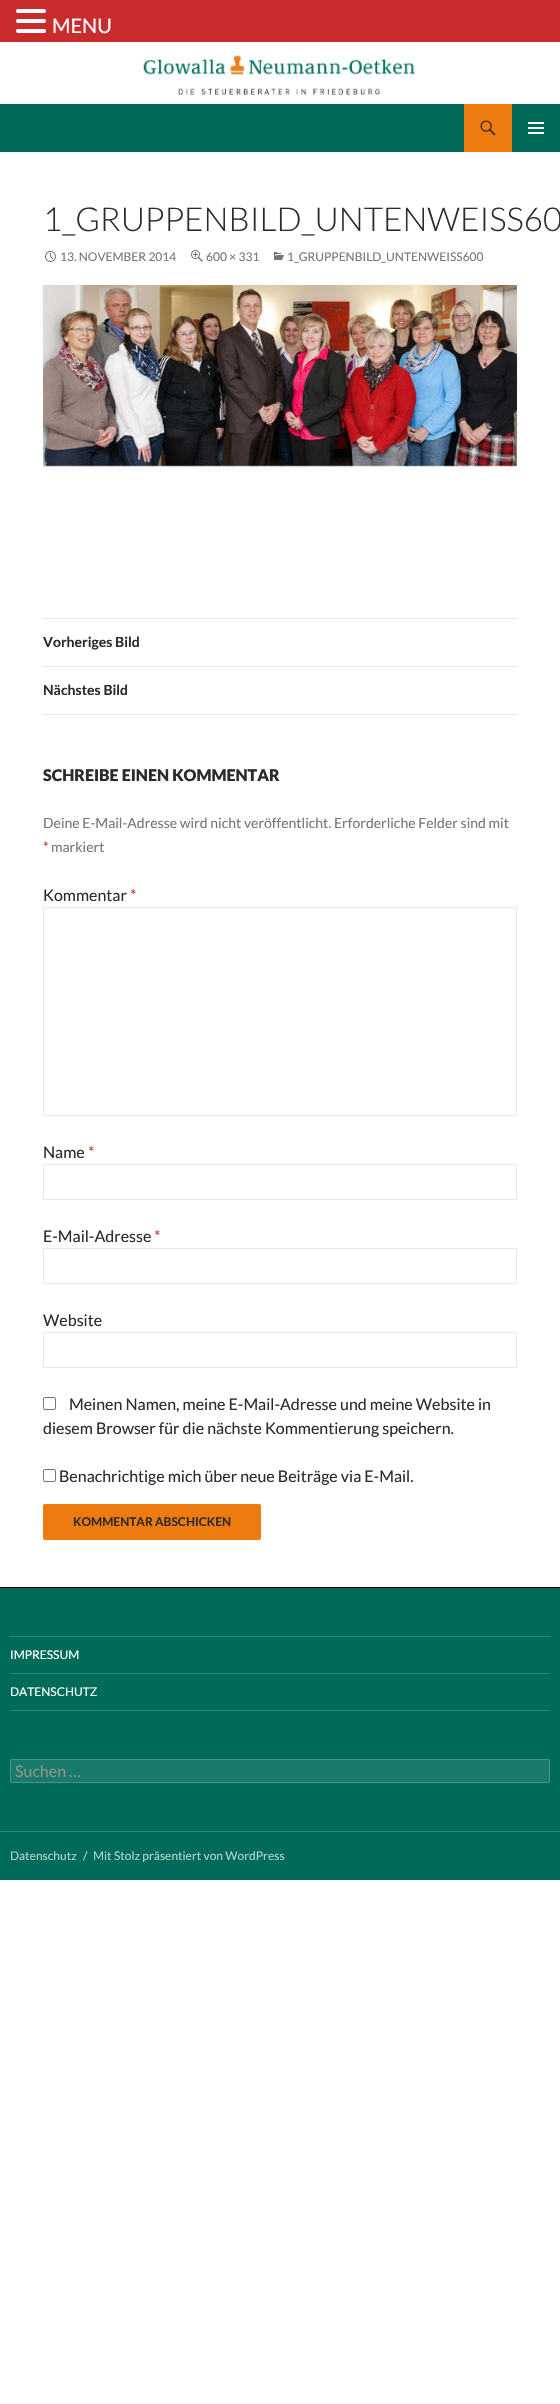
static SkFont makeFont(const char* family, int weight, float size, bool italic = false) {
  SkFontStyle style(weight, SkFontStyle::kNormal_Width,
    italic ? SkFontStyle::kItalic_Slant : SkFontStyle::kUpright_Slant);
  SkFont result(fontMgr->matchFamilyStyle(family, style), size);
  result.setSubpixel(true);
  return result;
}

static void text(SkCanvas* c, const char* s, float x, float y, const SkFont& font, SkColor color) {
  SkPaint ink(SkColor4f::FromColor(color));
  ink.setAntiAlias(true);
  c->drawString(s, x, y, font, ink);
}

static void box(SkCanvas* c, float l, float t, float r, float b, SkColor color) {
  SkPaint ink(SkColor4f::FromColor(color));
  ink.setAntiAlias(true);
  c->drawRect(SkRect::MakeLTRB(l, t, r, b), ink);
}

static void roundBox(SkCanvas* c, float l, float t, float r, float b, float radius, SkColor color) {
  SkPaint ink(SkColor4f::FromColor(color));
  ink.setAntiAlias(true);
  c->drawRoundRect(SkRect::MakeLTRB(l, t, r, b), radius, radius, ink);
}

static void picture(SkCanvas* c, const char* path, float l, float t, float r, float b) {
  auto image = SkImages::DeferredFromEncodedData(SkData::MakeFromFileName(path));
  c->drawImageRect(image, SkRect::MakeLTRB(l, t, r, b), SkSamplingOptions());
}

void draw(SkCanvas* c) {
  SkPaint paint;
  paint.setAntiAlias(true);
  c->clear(0xffffffff);
  box(c, 0, 0, 560, 42, 0xffc92c2c);
  roundBox(c, 16, 9, 46, 13, 2, 0xffffffff);
  roundBox(c, 16, 19, 46, 23, 2, 0xffffffff);
  roundBox(c, 16, 29, 46, 33, 2, 0xffffffff);
  SkFont face1 = makeFont("Lato", 400, 20);
  text(c, "MENU", 52, 33, face1, 0xffffffff);
  picture(c, "img_01.png", 143, 51, 416, 96);
  box(c, 0, 104, 560, 152, 0xff006b58);
  box(c, 464, 104, 512, 152, 0xffed7b0f);
  picture(c, "img_02.png", 480, 120, 496, 136);
  picture(c, "img_03.png", 528, 122, 544, 134);
  SkFont face2 = makeFont("Lato", 300, 33);
  text(c, "1_GRUPPENBILD_UNTENWEISS60", 43, 231, face2, 0xff2b2b2b);
  picture(c, "img_04.png", 45, 251, 56, 262);
  SkFont face3 = makeFont("Lato", 400, 12);
  text(c, "13. NOVEMBER 2014", 60, 261, face3, 0xff767676);
  picture(c, "img_05.png", 191, 250, 203, 262);
  text(c, "600 × 331", 206, 261, face3, 0xff767676);
  picture(c, "img_06.png", 274, 252, 284, 260);
  text(c, "1_GRUPPENBILD_UNTENWEISS600", 287, 261, face3, 0xff767676);
  picture(c, "img_07.png", 43, 285, 517, 468);
  box(c, 43, 618, 517, 619, 0xffe6e6e6);
  box(c, 43, 666, 517, 667, 0xffe6e6e6);
  SkFont face4 = makeFont("Lato", 700, 14);
  text(c, "Vorheriges Bild", 43, 647, face4, 0xff2b2b2b);
  box(c, 43, 714, 517, 715, 0xffe6e6e6);
  text(c, "Nächstes Bild", 43, 695, face4, 0xff2b2b2b);
  SkFont face5 = makeFont("Lato", 900, 16);
  text(c, "SCHREIBE EINEN KOMMENTAR", 43, 781, face5, 0xff2b2b2b);
  SkFont face6 = makeFont("Lato", 400, 14);
  text(c, "Deine E-Mail-Adresse wird nicht veröffentlicht. Erforderliche Felder sind mit", 43, 828, face6, 0xff767676);
  text(c, "*", 43, 852, face6, 0xffc0392b);
  text(c, "markiert", 51, 852, face6, 0xff767676);
  SkFont face7 = makeFont("Lato", 400, 16);
  text(c, "Kommentar", 43, 901, face7, 0xff2b2b2b);
  text(c, "*", 130, 901, face7, 0xffc0392b);
  paint.setStyle(SkPaint::kStroke_Style);
  paint.setStrokeWidth(1);
  paint.setColor(0xffe6e6e6);
  c->drawRoundRect(SkRect::MakeLTRB(43.5f, 907.5f, 516.5f, 1115.5f), 1.5f, 1.5f, paint);
  text(c, "Name", 43, 1158, face7, 0xff2b2b2b);
  text(c, "*", 88, 1158, face7, 0xffc0392b);
  c->drawRoundRect(SkRect::MakeLTRB(43.5f, 1164.5f, 516.5f, 1199.5f), 1.5f, 1.5f, paint);
  text(c, "E-Mail-Adresse", 43, 1242, face7, 0xff2b2b2b);
  text(c, "*", 154, 1242, face7, 0xffc0392b);
  c->drawRoundRect(SkRect::MakeLTRB(43.5f, 1248.5f, 516.5f, 1283.5f), 1.5f, 1.5f, paint);
  text(c, "Website", 43, 1326, face7, 0xff2b2b2b);
  c->drawRoundRect(SkRect::MakeLTRB(43.5f, 1332.5f, 516.5f, 1367.5f), 1.5f, 1.5f, paint);
  paint.setColor(0xff767676);
  c->drawRoundRect(SkRect::MakeLTRB(43.5f, 1397.5f, 55.5f, 1409.5f), 1.5f, 1.5f, paint);
  text(c, "Meinen Namen, meine E-Mail-Adresse und meine Website in", 69, 1410, face7, 0xff2b2b2b);
  text(c, "diesem Browser für die nächste Kommentierung speichern.", 43, 1434, face7, 0xff2b2b2b);
  c->drawRoundRect(SkRect::MakeLTRB(43.5f, 1469.5f, 55.5f, 1481.5f), 1.5f, 1.5f, paint);
  text(c, "Benachrichtige mich über neue Beiträge via E-Mail.", 59, 1482, face7, 0xff2b2b2b);
  roundBox(c, 43, 1504, 261, 1540, 2, 0xffed7b0f);
  SkFont face8 = makeFont("Lato", 700, 12);
  text(c, "KOMMENTAR ABSCHICKEN", 73, 1526, face8, 0xff2b2b2b);
  box(c, 0, 1588, 560, 1831, 0xff006b58);
  box(c, 0, 1587, 560, 1588, 0xff000000);
  box(c, 0, 1831, 560, 1832, 0xff338979);
  box(c, 10, 1710, 550, 1711, 0xff338979);
  box(c, 10, 1636, 550, 1637, 0xff338979);
  text(c, "IMPRESSUM", 10, 1659, face3, 0xffffffff);
  box(c, 10, 1673, 550, 1674, 0xff338979);
  text(c, "DATENSCHUTZ", 10, 1696, face3, 0xffffffff);
  roundBox(c, 10, 1759, 550, 1783, 2, 0xff1a7a69);
  paint.setColor(0x33ffffff);
  c->drawRoundRect(SkRect::MakeLTRB(10.5f, 1759.5f, 549.5f, 1782.5f), 1.5f, 1.5f, paint);
  text(c, "Suchen …", 15, 1777, face7, 0xff939393);
  box(c, 0, 1832, 560, 1880, 0xff006b58);
  text(c, "Datenschutz", 10, 1860, face3, 0xffb3d3cd);
  text(c, "/", 83, 1860, face3, 0xffb3d3cd);
  text(c, "Mit Stolz präsentiert von WordPress", 93, 1860, face3, 0xffb3d3cd);
}
